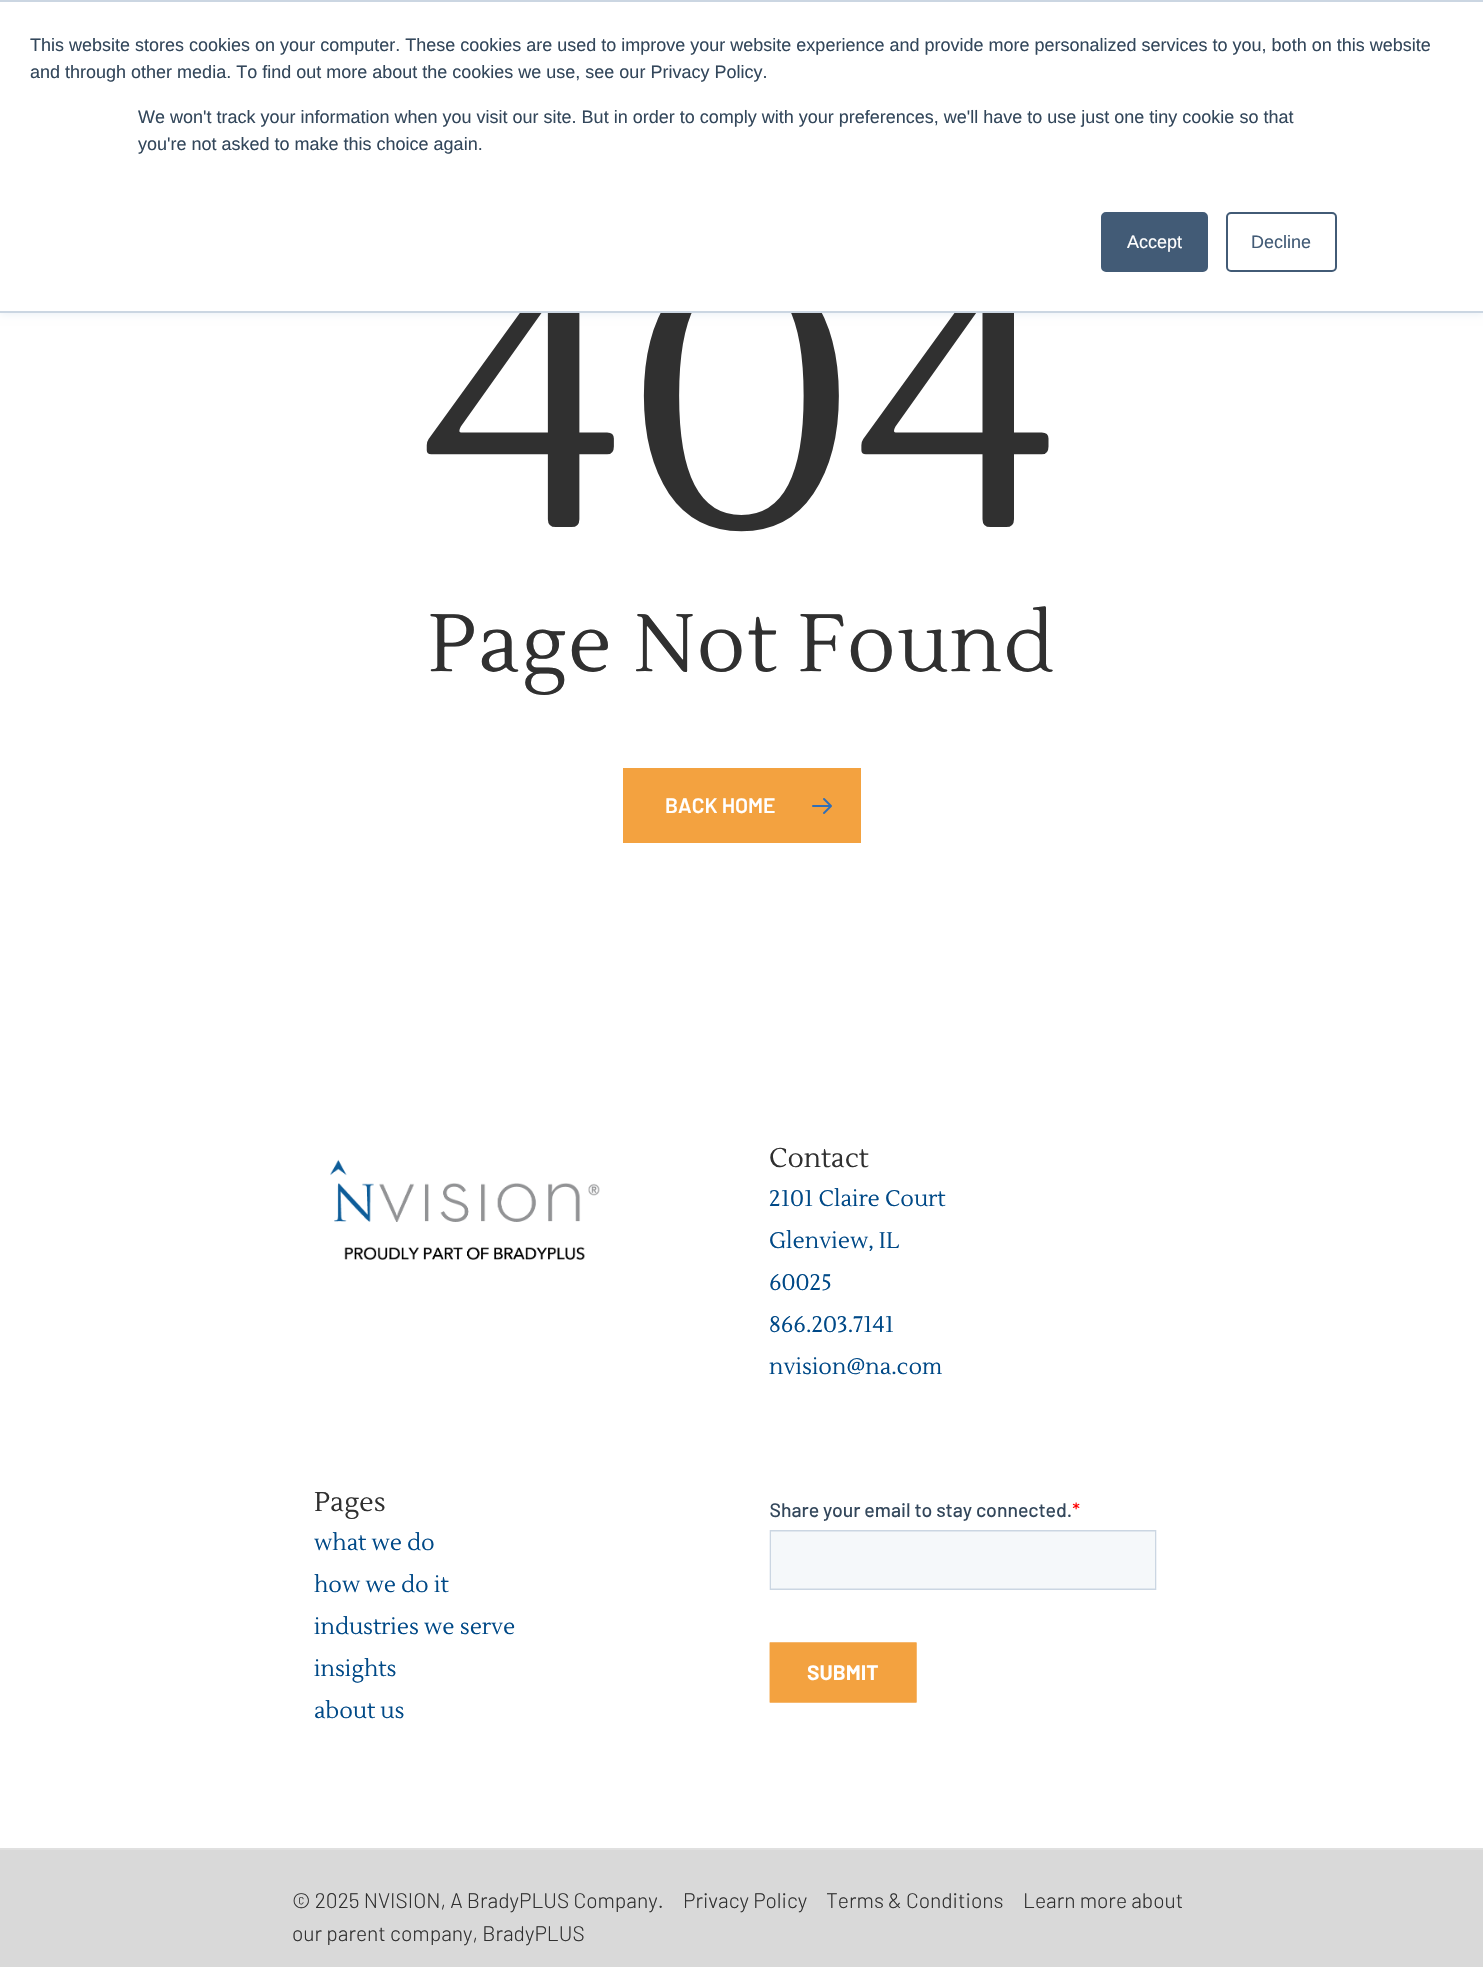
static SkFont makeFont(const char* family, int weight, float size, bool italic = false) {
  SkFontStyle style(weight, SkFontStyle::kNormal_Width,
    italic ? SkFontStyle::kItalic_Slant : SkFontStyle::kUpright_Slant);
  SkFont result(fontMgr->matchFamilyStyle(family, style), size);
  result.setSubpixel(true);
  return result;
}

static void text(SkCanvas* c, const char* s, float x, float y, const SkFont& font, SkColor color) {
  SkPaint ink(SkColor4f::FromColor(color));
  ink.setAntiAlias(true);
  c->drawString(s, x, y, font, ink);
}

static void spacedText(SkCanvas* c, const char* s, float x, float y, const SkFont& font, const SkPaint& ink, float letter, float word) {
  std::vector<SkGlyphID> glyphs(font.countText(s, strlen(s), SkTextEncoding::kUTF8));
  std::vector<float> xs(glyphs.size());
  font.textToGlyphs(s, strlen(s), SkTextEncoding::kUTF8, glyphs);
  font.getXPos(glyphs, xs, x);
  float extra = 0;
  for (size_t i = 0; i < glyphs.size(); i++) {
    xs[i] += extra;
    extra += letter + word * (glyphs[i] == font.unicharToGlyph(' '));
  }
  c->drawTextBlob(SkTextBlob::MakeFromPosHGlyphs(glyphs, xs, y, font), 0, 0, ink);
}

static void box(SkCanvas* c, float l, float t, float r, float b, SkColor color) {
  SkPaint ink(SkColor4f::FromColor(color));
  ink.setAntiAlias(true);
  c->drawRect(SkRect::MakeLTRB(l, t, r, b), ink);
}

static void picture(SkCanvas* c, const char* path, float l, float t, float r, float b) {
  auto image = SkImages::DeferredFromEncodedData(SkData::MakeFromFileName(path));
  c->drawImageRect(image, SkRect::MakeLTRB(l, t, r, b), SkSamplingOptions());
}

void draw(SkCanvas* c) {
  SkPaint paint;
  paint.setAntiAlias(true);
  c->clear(0xffffffff);
  paint.setColor(0xffeaf0f6);
  paint.setMaskFilter(SkMaskFilter::MakeBlur(kNormal_SkBlurStyle, 4));
  c->drawRect(SkRect::MakeLTRB(0, 2, 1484, 314), paint);
  paint.setMaskFilter(nullptr);
  SkFont face1 = makeFont("Lustria", 400, 375);
  text(c, "404", 423, 527, face1, 0xff303030);
  box(c, 0, 2, 1483, 311, 0xffffffff);
  box(c, 0, 0, 1483, 2, 0xffcbd6e2);
  box(c, 0, 311, 1483, 313, 0xffcbd6e2);
  SkFont face2 = makeFont("Liberation Sans", 400, 18);
  text(c, "This website stores cookies on your computer. These cookies are used to improve your website experience and provide more personalized services to you, both on this website", 30, 51, face2, 0xff33475b);
  text(c, "and through other media. To find out more about the cookies we use, see our Privacy Policy.", 30, 78, face2, 0xff33475b);
  text(c, "We won't track your information when you visit our site. But in order to comply with your preferences, we'll have to use just one tiny cookie so that", 138, 123, face2, 0xff33475b);
  text(c, "you're not asked to make this choice again.", 138, 150, face2, 0xff33475b);
  paint.setColor(0xff425b76);
  c->drawRoundRect(SkRect::MakeLTRB(1102, 213, 1207, 271), 4, 4, paint);
  paint.setStyle(SkPaint::kStroke_Style);
  paint.setStrokeWidth(2);
  c->drawRoundRect(SkRect::MakeLTRB(1102, 213, 1207, 271), 4, 4, paint);
  text(c, "Accept", 1127, 248, face2, 0xffffffff);
  c->drawRoundRect(SkRect::MakeLTRB(1227, 213, 1336, 271), 4, 4, paint);
  text(c, "Decline", 1251, 248, face2, 0xff425b76);
  SkFont face3 = makeFont("Lustria", 400, 81);
  paint.setStyle(SkPaint::kFill_Style);
  paint.setColor(0xff303030);
  spacedText(c, "Page Not Found", 428, 671, face3, paint, 1.5f, 0);
  box(c, 623, 768, 861, 843, 0xfff3a240);
  SkFont face4 = makeFont("Barlow", 600, 21);
  text(c, "BACK HOME", 665, 813, face4, 0xffffffff);
  picture(c, "img_01.png", 812, 798, 832, 814);
  picture(c, "img_02.png", 330, 1159, 600, 1260);
  SkFont face5 = makeFont("Lustria", 400, 27);
  text(c, "Contact", 769, 1167, face5, 0xff303030);
  SkFont face6 = makeFont("Lustria", 400, 22.5f);
  text(c, "2101 Claire Court", 769, 1206, face6, 0xff004987);
  text(c, "Glenview, IL", 769, 1248, face6, 0xff004987);
  text(c, "60025", 769, 1290, face6, 0xff004987);
  text(c, "866.203.7141", 769, 1332, face6, 0xff004987);
  text(c, "nvision@na.com", 769, 1374, face6, 0xff004987);
  text(c, "Pages", 314, 1511, face5, 0xff303030);
  text(c, "what we do", 314, 1550, face6, 0xff004987);
  text(c, "how we do it", 314, 1592, face6, 0xff004987);
  text(c, "industries we serve", 314, 1634, face6, 0xff004987);
  text(c, "insights", 314, 1676, face6, 0xff004987);
  text(c, "about us", 314, 1718, face6, 0xff004987);
  picture(c, "img_03.png", 769, 1502, 1157, 1703);
  box(c, 0, 1850, 1483, 1967, 0xffd9d9d9);
  box(c, 0, 1848, 1483, 1850, 0xffe0e0e0);
  SkFont face7 = makeFont("Barlow", 300, 21);
  text(c, "© 2025 NVISION, A BradyPLUS Company.", 292, 1908, face7, 0xff303030);
  text(c, "Privacy Policy", 683, 1908, face7, 0xff303030);
  text(c, "Terms & Conditions", 826, 1908, face7, 0xff303030);
  text(c, "Learn more about", 1023, 1908, face7, 0xff303030);
  text(c, "our parent company, BradyPLUS", 292, 1941, face7, 0xff303030);
}
